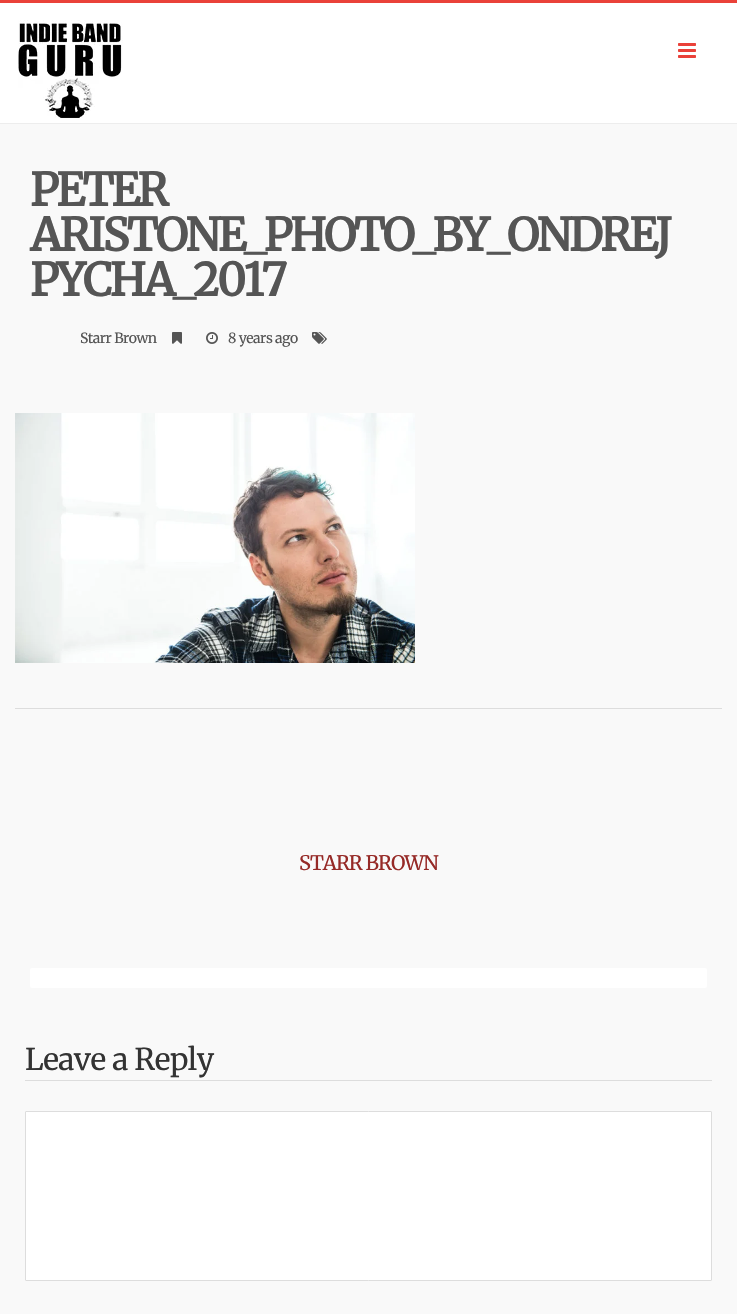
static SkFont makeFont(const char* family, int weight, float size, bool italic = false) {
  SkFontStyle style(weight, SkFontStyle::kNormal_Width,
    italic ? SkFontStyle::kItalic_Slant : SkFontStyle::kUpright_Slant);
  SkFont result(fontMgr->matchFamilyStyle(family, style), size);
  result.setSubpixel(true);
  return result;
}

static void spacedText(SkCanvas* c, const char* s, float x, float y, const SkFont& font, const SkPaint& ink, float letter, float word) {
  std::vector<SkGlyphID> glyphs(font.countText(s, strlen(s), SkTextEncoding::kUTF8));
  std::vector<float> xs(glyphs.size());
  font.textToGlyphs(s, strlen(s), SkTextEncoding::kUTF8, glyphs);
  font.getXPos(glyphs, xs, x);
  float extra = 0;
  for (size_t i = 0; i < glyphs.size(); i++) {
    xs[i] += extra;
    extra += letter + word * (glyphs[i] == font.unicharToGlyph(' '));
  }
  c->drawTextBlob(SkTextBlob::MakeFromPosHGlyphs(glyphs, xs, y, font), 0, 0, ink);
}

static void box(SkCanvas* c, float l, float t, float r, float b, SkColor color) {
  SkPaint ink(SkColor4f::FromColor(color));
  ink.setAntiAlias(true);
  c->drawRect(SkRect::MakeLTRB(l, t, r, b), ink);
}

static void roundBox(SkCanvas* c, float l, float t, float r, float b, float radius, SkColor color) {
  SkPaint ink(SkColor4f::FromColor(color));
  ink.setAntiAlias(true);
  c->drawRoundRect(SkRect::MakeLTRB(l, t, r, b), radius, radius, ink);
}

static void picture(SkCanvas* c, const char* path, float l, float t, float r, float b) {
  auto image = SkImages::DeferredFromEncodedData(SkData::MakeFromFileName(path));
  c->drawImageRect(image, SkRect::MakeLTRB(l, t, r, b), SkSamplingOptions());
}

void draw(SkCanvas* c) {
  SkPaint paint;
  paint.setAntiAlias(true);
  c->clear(0xfff9f9f9);
  box(c, 0, 123, 737, 124, 0xffededed);
  box(c, 0, 3, 737, 123, 0xffffffff);
  box(c, 0, 0, 737, 3, 0xffea4139);
  picture(c, "img_01.png", 18, 20, 123, 118);
  picture(c, "img_02.png", 678, 43, 696, 58);
  SkFont face1 = makeFont("Merriweather", 700, 45);
  paint.setColor(0xff555555);
  spacedText(c, "PETER", 30, 206, face1, paint, -2.5f, 0);
  spacedText(c, "ARISTONE_PHOTO_BY_ONDREJ", 30, 251, face1, paint, -2.5f, 0);
  spacedText(c, "PYCHA_2017", 30, 296, face1, paint, -2.5f, 0);
  SkFont face2 = makeFont("Merriweather", 300, 14);
  spacedText(c, "Starr Brown", 80, 343, face2, paint, -0.5f, 0);
  picture(c, "img_03.png", 172, 332, 182, 344);
  picture(c, "img_04.png", 206, 332, 218, 344);
  spacedText(c, "8 years ago", 228, 343, face2, paint, -0.5f, 0);
  picture(c, "img_05.png", 312, 332, 327, 344);
  picture(c, "img_06.png", 15, 413, 415, 663);
  box(c, 15, 708, 722, 709, 0xffdddddd);
  SkFont face3 = makeFont("Merriweather", 300, 20);
  paint.setColor(0xff962a27);
  spacedText(c, "STARR BROWN", 299, 870, face3, paint, -1, 0);
  roundBox(c, 30, 968, 707, 988, 2, 0xffffffff);
  box(c, 25, 1080, 712, 1081, 0xffdddddd);
  SkFont face4 = makeFont("Merriweather", 300, 30);
  paint.setColor(0xff333333);
  spacedText(c, "Leave a Reply", 25, 1070, face4, paint, -0.5f, 0);
  paint.setColor(0xffffffff);
  c->drawRoundRect(SkRect::MakeLTRB(25.5f, 1111.5f, 711.5f, 1280.5f), 0.5f, 0.5f, paint);
  paint.setStyle(SkPaint::kStroke_Style);
  paint.setStrokeWidth(1);
  paint.setColor(0xffdddddd);
  c->drawRoundRect(SkRect::MakeLTRB(25.5f, 1111.5f, 711.5f, 1280.5f), 0.5f, 0.5f, paint);
}
